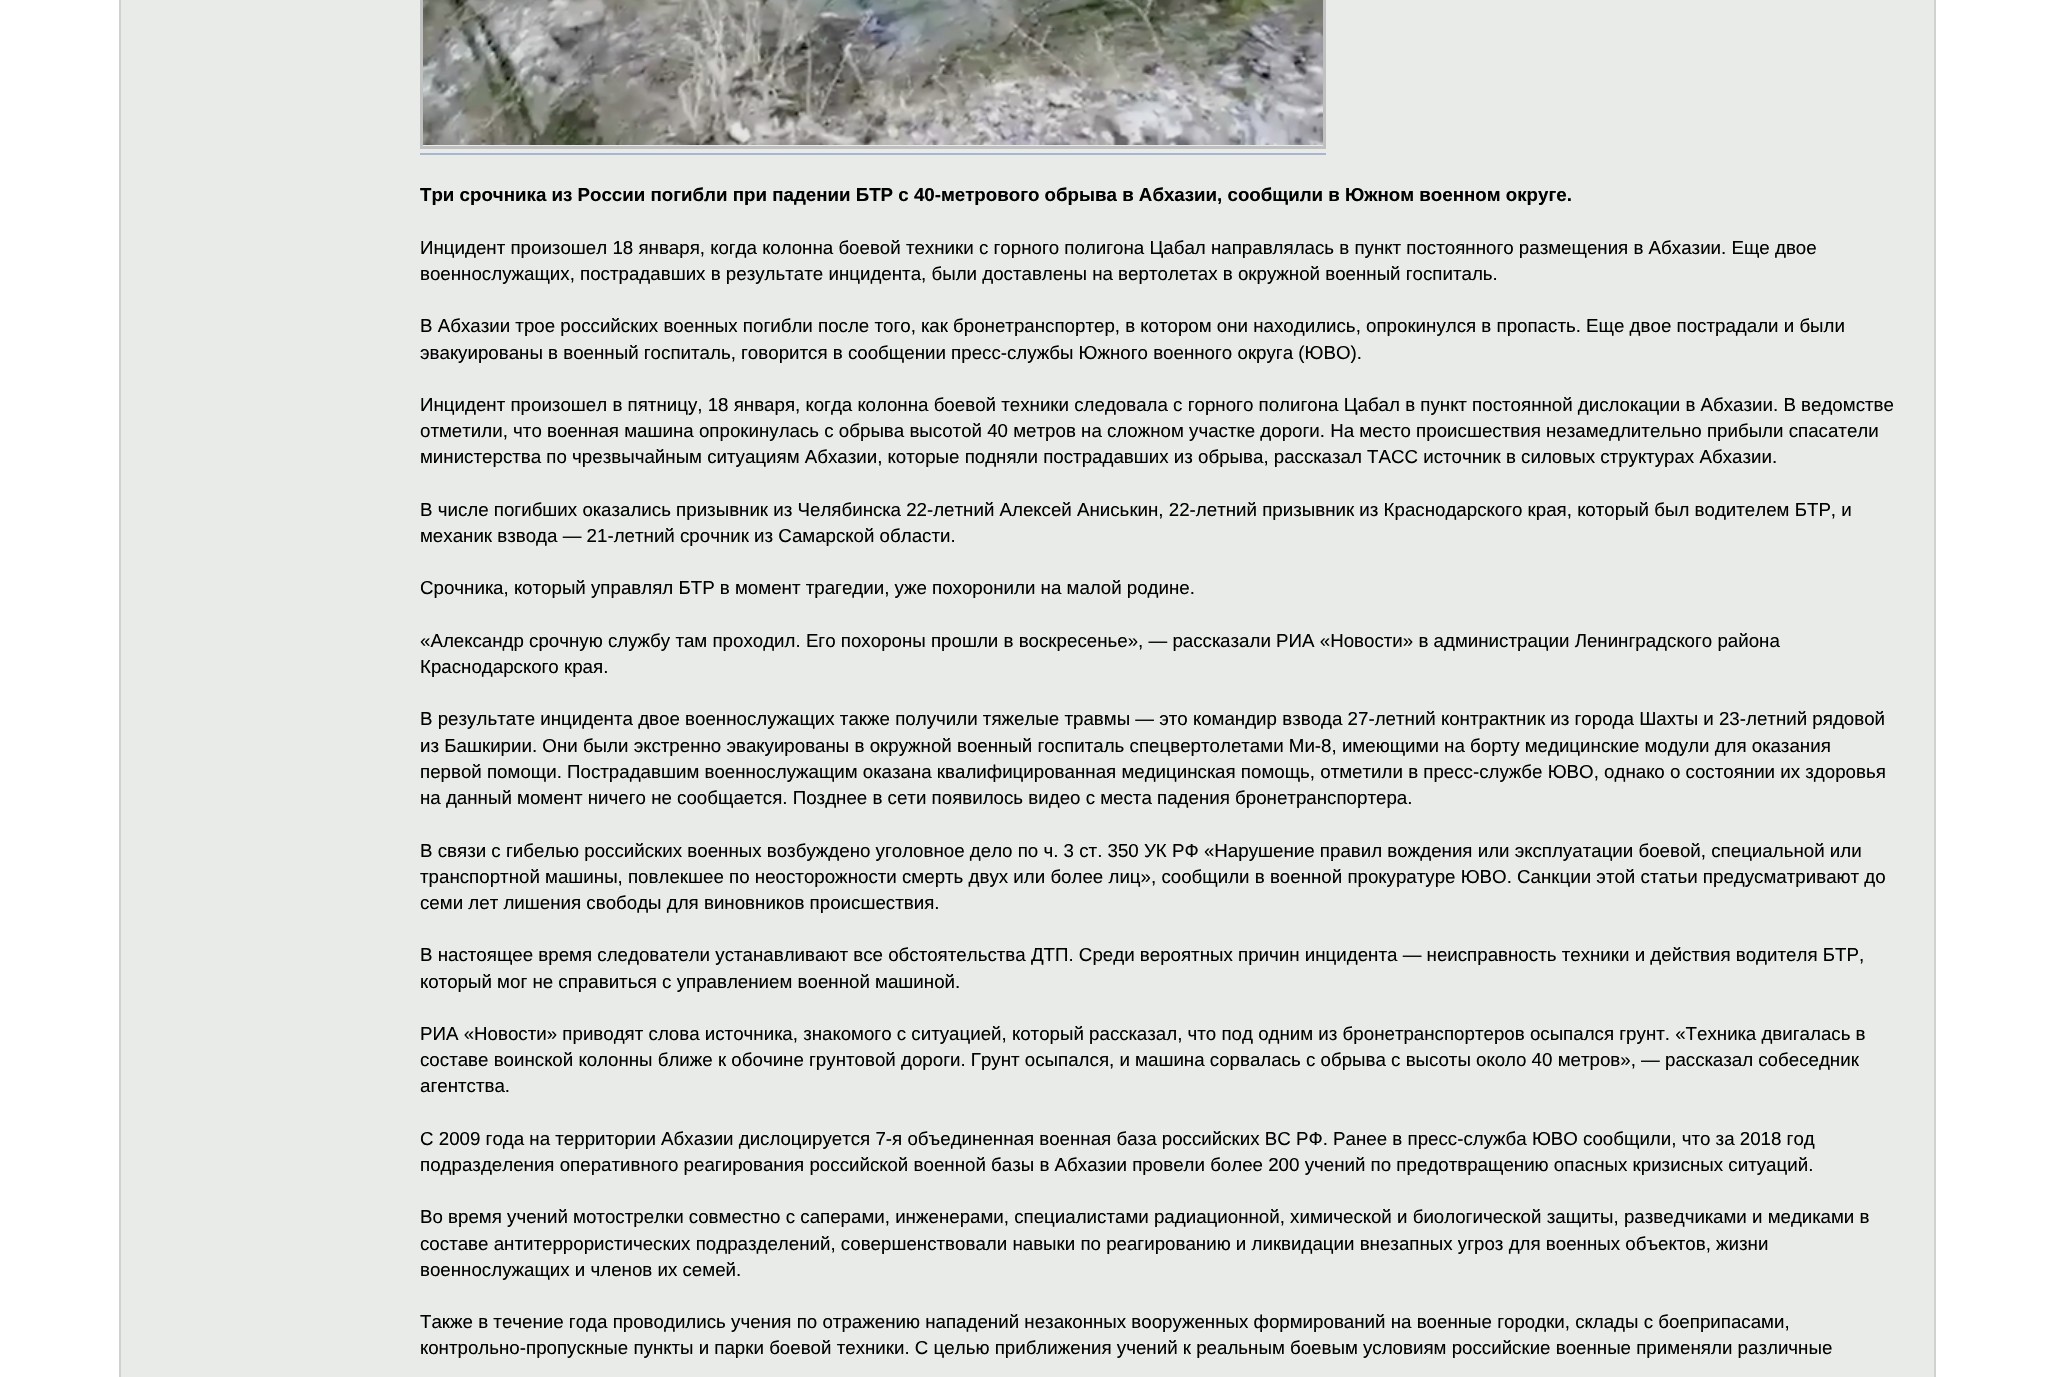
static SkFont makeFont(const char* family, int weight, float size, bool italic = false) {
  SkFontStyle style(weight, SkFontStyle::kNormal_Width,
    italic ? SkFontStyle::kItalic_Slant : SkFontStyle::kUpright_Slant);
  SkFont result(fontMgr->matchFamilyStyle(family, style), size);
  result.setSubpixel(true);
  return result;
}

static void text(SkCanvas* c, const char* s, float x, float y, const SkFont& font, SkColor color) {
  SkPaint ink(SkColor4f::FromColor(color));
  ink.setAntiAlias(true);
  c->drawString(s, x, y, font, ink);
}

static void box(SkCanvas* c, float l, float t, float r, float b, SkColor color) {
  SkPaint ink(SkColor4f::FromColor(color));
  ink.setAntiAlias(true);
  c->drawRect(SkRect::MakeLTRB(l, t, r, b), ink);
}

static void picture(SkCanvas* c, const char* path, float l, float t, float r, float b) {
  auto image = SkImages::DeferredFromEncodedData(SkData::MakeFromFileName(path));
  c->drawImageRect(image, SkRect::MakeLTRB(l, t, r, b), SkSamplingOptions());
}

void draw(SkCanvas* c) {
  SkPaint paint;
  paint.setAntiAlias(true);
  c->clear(0xffffffff);
  box(c, 121, 0, 1934, 1377, 0xffe9ebe9);
  box(c, 1934, 0, 1936, 1377, 0xffd0d2cf);
  box(c, 119, 0, 121, 1377, 0xffd0d2cf);
  paint.setStyle(SkPaint::kStroke_Style);
  paint.setStrokeWidth(3);
  paint.setColor(0xffc0c0c0);
  c->drawRect(SkRect::MakeLTRB(421.5f, -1.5f, 1324.5f, 147.5f), paint);
  picture(c, "img_01.png", 423, 0, 1323, 145);
  box(c, 420, 153, 1326, 155, 0xffa8b6cf);
  SkFont face1 = makeFont("Liberation Sans", 700, 18.72f);
  text(c, "Три срочника из России погибли при падении БТР с 40-метрового обрыва в Абхазии, сообщили в Южном военном округе.", 420, 201, face1, 0xff000000);
  SkFont face2 = makeFont("Liberation Sans", 400, 18.72f);
  text(c, "Инцидент произошел 18 января, когда колонна боевой техники с горного полигона Цабал направлялась в пункт постоянного размещения в Абхазии. Еще двое", 420, 254, face2, 0xff000000);
  text(c, "военнослужащих, пострадавших в результате инцидента, были доставлены на вертолетах в окружной военный госпиталь.", 420, 280, face2, 0xff000000);
  text(c, "В Абхазии трое российских военных погибли после того, как бронетранспортер, в котором они находились, опрокинулся в пропасть. Еще двое пострадали и были", 420, 332, face2, 0xff000000);
  text(c, "эвакуированы в военный госпиталь, говорится в сообщении пресс-службы Южного военного округа (ЮВО).", 420, 359, face2, 0xff000000);
  text(c, "Инцидент произошел в пятницу, 18 января, когда колонна боевой техники следовала с горного полигона Цабал в пункт постоянной дислокации в Абхазии. В ведомстве", 420, 411, face2, 0xff000000);
  text(c, "отметили, что военная машина опрокинулась с обрыва высотой 40 метров на сложном участке дороги. На место происшествия незамедлительно прибыли спасатели", 420, 437, face2, 0xff000000);
  text(c, "министерства по чрезвычайным ситуациям Абхазии, которые подняли пострадавших из обрыва, рассказал ТАСС источник в силовых структурах Абхазии.", 420, 463, face2, 0xff000000);
  text(c, "В числе погибших оказались призывник из Челябинска 22-летний Алексей Аниськин, 22-летний призывник из Краснодарского края, который был водителем БТР, и", 420, 516, face2, 0xff000000);
  text(c, "механик взвода — 21-летний срочник из Самарской области.", 420, 542, face2, 0xff000000);
  text(c, "Срочника, который управлял БТР в момент трагедии, уже похоронили на малой родине.", 420, 594, face2, 0xff000000);
  text(c, "«Александр срочную службу там проходил. Его похороны прошли в воскресенье», — рассказали РИА «Новости» в администрации Ленинградского района", 420, 647, face2, 0xff000000);
  text(c, "Краснодарского края.", 420, 673, face2, 0xff000000);
  text(c, "В результате инцидента двое военнослужащих также получили тяжелые травмы — это командир взвода 27-летний контрактник из города Шахты и 23-летний рядовой", 420, 725, face2, 0xff000000);
  text(c, "из Башкирии. Они были экстренно эвакуированы в окружной военный госпиталь спецвертолетами Ми-8, имеющими на борту медицинские модули для оказания", 420, 752, face2, 0xff000000);
  text(c, "первой помощи. Пострадавшим военнослужащим оказана квалифицированная медицинская помощь, отметили в пресс-службе ЮВО, однако о состоянии их здоровья", 420, 778, face2, 0xff000000);
  text(c, "на данный момент ничего не сообщается. Позднее в сети появилось видео с места падения бронетранспортера.", 420, 804, face2, 0xff000000);
  text(c, "В связи с гибелью российских военных возбуждено уголовное дело по ч. 3 ст. 350 УК РФ «Нарушение правил вождения или эксплуатации боевой, специальной или", 420, 857, face2, 0xff000000);
  text(c, "транспортной машины, повлекшее по неосторожности смерть двух или более лиц», сообщили в военной прокуратуре ЮВО. Санкции этой статьи предусматривают до", 420, 883, face2, 0xff000000);
  text(c, "семи лет лишения свободы для виновников происшествия.", 420, 909, face2, 0xff000000);
  text(c, "В настоящее время следователи устанавливают все обстоятельства ДТП. Среди вероятных причин инцидента — неисправность техники и действия водителя БТР,", 420, 961, face2, 0xff000000);
  text(c, "который мог не справиться с управлением военной машиной.", 420, 988, face2, 0xff000000);
  text(c, "РИА «Новости» приводят слова источника, знакомого с ситуацией, который рассказал, что под одним из бронетранспортеров осыпался грунт. «Техника двигалась в", 420, 1040, face2, 0xff000000);
  text(c, "составе воинской колонны ближе к обочине грунтовой дороги. Грунт осыпался, и машина сорвалась с обрыва с высоты около 40 метров», — рассказал собеседник", 420, 1066, face2, 0xff000000);
  text(c, "агентства.", 420, 1092, face2, 0xff000000);
  text(c, "С 2009 года на территории Абхазии дислоцируется 7-я объединенная военная база российских ВС РФ. Ранее в пресс-служба ЮВО сообщили, что за 2018 год", 420, 1145, face2, 0xff000000);
  text(c, "подразделения оперативного реагирования российской военной базы в Абхазии провели более 200 учений по предотвращению опасных кризисных ситуаций.", 420, 1171, face2, 0xff000000);
  text(c, "Во время учений мотострелки совместно с саперами, инженерами, специалистами радиационной, химической и биологической защиты, разведчиками и медиками в", 420, 1223, face2, 0xff000000);
  text(c, "составе антитеррористических подразделений, совершенствовали навыки по реагированию и ликвидации внезапных угроз для военных объектов, жизни", 420, 1250, face2, 0xff000000);
  text(c, "военнослужащих и членов их семей.", 420, 1276, face2, 0xff000000);
  text(c, "Также в течение года проводились учения по отражению нападений незаконных вооруженных формирований на военные городки, склады с боеприпасами,", 420, 1328, face2, 0xff000000);
  text(c, "контрольно-пропускные пункты и парки боевой техники. С целью приближения учений к реальным боевым условиям российские военные применяли различные", 420, 1354, face2, 0xff000000);
}
